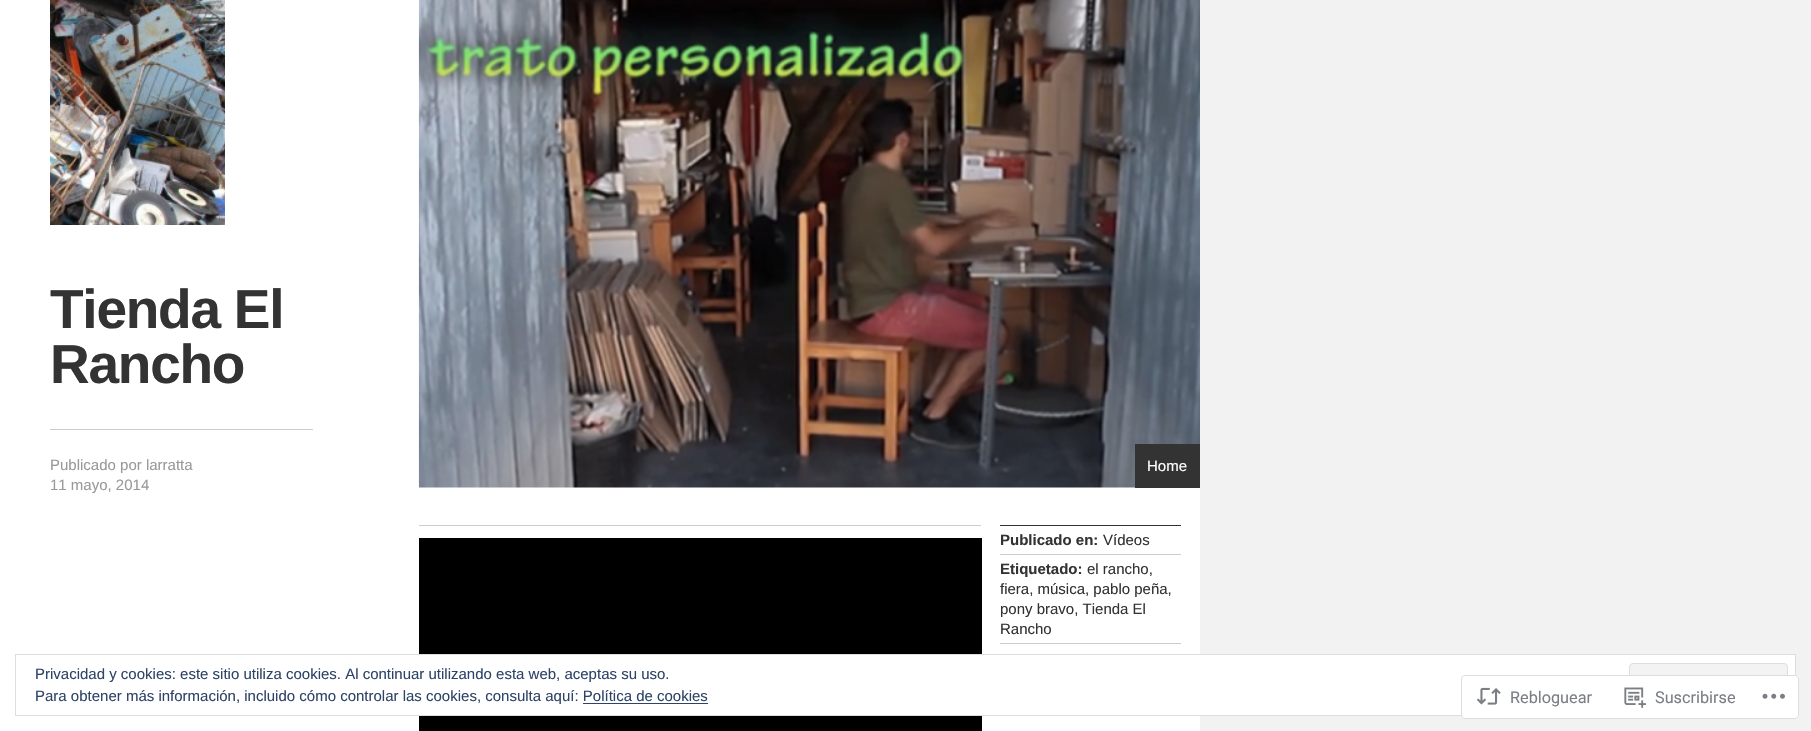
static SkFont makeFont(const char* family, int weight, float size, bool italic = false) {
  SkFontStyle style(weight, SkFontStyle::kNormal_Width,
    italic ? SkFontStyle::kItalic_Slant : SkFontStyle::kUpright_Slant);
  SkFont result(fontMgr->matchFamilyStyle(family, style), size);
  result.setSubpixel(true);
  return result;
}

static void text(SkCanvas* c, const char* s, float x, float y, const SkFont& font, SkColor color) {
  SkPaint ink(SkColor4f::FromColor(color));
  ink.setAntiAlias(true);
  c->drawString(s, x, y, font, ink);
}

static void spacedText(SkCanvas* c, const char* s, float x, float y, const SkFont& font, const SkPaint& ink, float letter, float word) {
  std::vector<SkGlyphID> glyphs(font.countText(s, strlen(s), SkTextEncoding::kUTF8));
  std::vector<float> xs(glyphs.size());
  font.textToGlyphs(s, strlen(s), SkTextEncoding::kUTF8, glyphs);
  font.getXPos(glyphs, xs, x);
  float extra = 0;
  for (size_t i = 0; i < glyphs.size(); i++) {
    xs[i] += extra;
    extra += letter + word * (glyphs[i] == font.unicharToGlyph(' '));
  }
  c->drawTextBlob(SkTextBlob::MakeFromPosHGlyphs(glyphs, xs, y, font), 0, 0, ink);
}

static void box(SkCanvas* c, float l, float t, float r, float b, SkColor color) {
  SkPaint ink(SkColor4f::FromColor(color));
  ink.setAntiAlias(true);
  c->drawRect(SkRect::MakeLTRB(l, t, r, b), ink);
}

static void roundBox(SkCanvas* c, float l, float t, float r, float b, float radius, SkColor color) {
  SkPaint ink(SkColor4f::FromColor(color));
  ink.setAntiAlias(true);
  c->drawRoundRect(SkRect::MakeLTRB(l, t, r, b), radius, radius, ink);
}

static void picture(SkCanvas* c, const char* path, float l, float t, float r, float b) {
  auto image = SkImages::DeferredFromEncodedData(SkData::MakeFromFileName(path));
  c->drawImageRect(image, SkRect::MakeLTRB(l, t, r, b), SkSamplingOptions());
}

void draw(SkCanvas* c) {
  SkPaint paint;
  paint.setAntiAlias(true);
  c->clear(0xfff2f2f2);
  box(c, 0, 0, 1200, 731, 0xffffffff);
  picture(c, "img_01.png", 50, 0, 225, 225);
  box(c, 50, 429, 313, 430, 0xffcccccc);
  SkFont face1 = makeFont("Liberation Sans", 700, 55);
  paint.setColor(0xff333333);
  spacedText(c, "Tienda El", 50, 328, face1, paint, -1.25f, 0);
  spacedText(c, "Rancho", 50, 383, face1, paint, -1.25f, 0);
  SkFont face2 = makeFont("Liberation Sans", 400, 15);
  text(c, "Publicado por larratta", 50, 470, face2, 0xff999999);
  text(c, "11 mayo, 2014", 50, 490, face2, 0xff999999);
  picture(c, "img_02.png", 418, 0, 1200, 488);
  box(c, 1135, 444, 1200, 488, 0xff333333);
  text(c, "Home", 1147, 471, face2, 0xffffffff);
  box(c, 419, 525, 981, 526, 0xffcccccc);
  box(c, 419, 538, 982, 731, 0xff000000);
  box(c, 1000, 525, 1181, 526, 0xff333333);
  box(c, 1000, 554, 1181, 555, 0xffcccccc);
  SkFont face3 = makeFont("Liberation Sans", 700, 15);
  text(c, "Publicado en:", 1000, 545, face3, 0xff333333);
  text(c, "Vídeos", 1103, 545, face2, 0xff333333);
  box(c, 1000, 643, 1181, 644, 0xffcccccc);
  text(c, "Etiquetado:", 1000, 574, face3, 0xff333333);
  text(c, "el rancho,", 1087, 574, face2, 0xff333333);
  text(c, "fiera, música, pablo peña,", 1000, 594, face2, 0xff333333);
  text(c, "pony bravo, Tienda El", 1000, 614, face2, 0xff333333);
  text(c, "Rancho", 1000, 634, face2, 0xff333333);
  box(c, 419, 655, 1795, 715, 0xffffffff);
  paint.setStyle(SkPaint::kStroke_Style);
  paint.setStrokeWidth(1);
  paint.setColor(0xffdedede);
  c->drawRect(SkRect::MakeLTRB(15.5f, 654.5f, 1795.5f, 715.5f), paint);
  text(c, "Privacidad y cookies: este sitio utiliza cookies. Al continuar utilizando esta web, aceptas su uso.", 35, 679, face2, 0xff2e4467);
  paint.setStyle(SkPaint::kFill_Style);
  paint.setColor(0xfff3f3f3);
  c->drawRoundRect(SkRect::MakeLTRB(1629.5f, 663.5f, 1787.5f, 693.5f), 3.5f, 3.5f, paint);
  paint.setStyle(SkPaint::kStroke_Style);
  paint.setColor(0xffdedede);
  c->drawRoundRect(SkRect::MakeLTRB(1629.5f, 663.5f, 1787.5f, 693.5f), 3.5f, 3.5f, paint);
  text(c, "Para obtener más información, incluido cómo controlar las cookies, consulta aquí: Política de cookies", 35, 701, face2, 0xff2e4467);
  box(c, 583, 703, 708, 704, 0xff2e4467);
  roundBox(c, 1461, 675, 1799, 719, 4, 0xfaffffff);
  paint.setColor(0xfadcdcde);
  c->drawRoundRect(SkRect::MakeLTRB(1461.5f, 675.5f, 1798.5f, 718.5f), 3.5f, 3.5f, paint);
  picture(c, "img_03.png", 1476, 687, 1501, 705);
  SkFont face4 = makeFont("Roboto", 400, 16.25f);
  text(c, "Rebloguear", 1510, 703, face4, 0xff7b7f85);
  picture(c, "img_04.png", 1624, 687, 1646, 708);
  text(c, "Suscribirse", 1655, 703, face4, 0xff7b7f85);
  picture(c, "img_05.png", 1762, 693, 1785, 699);
}
